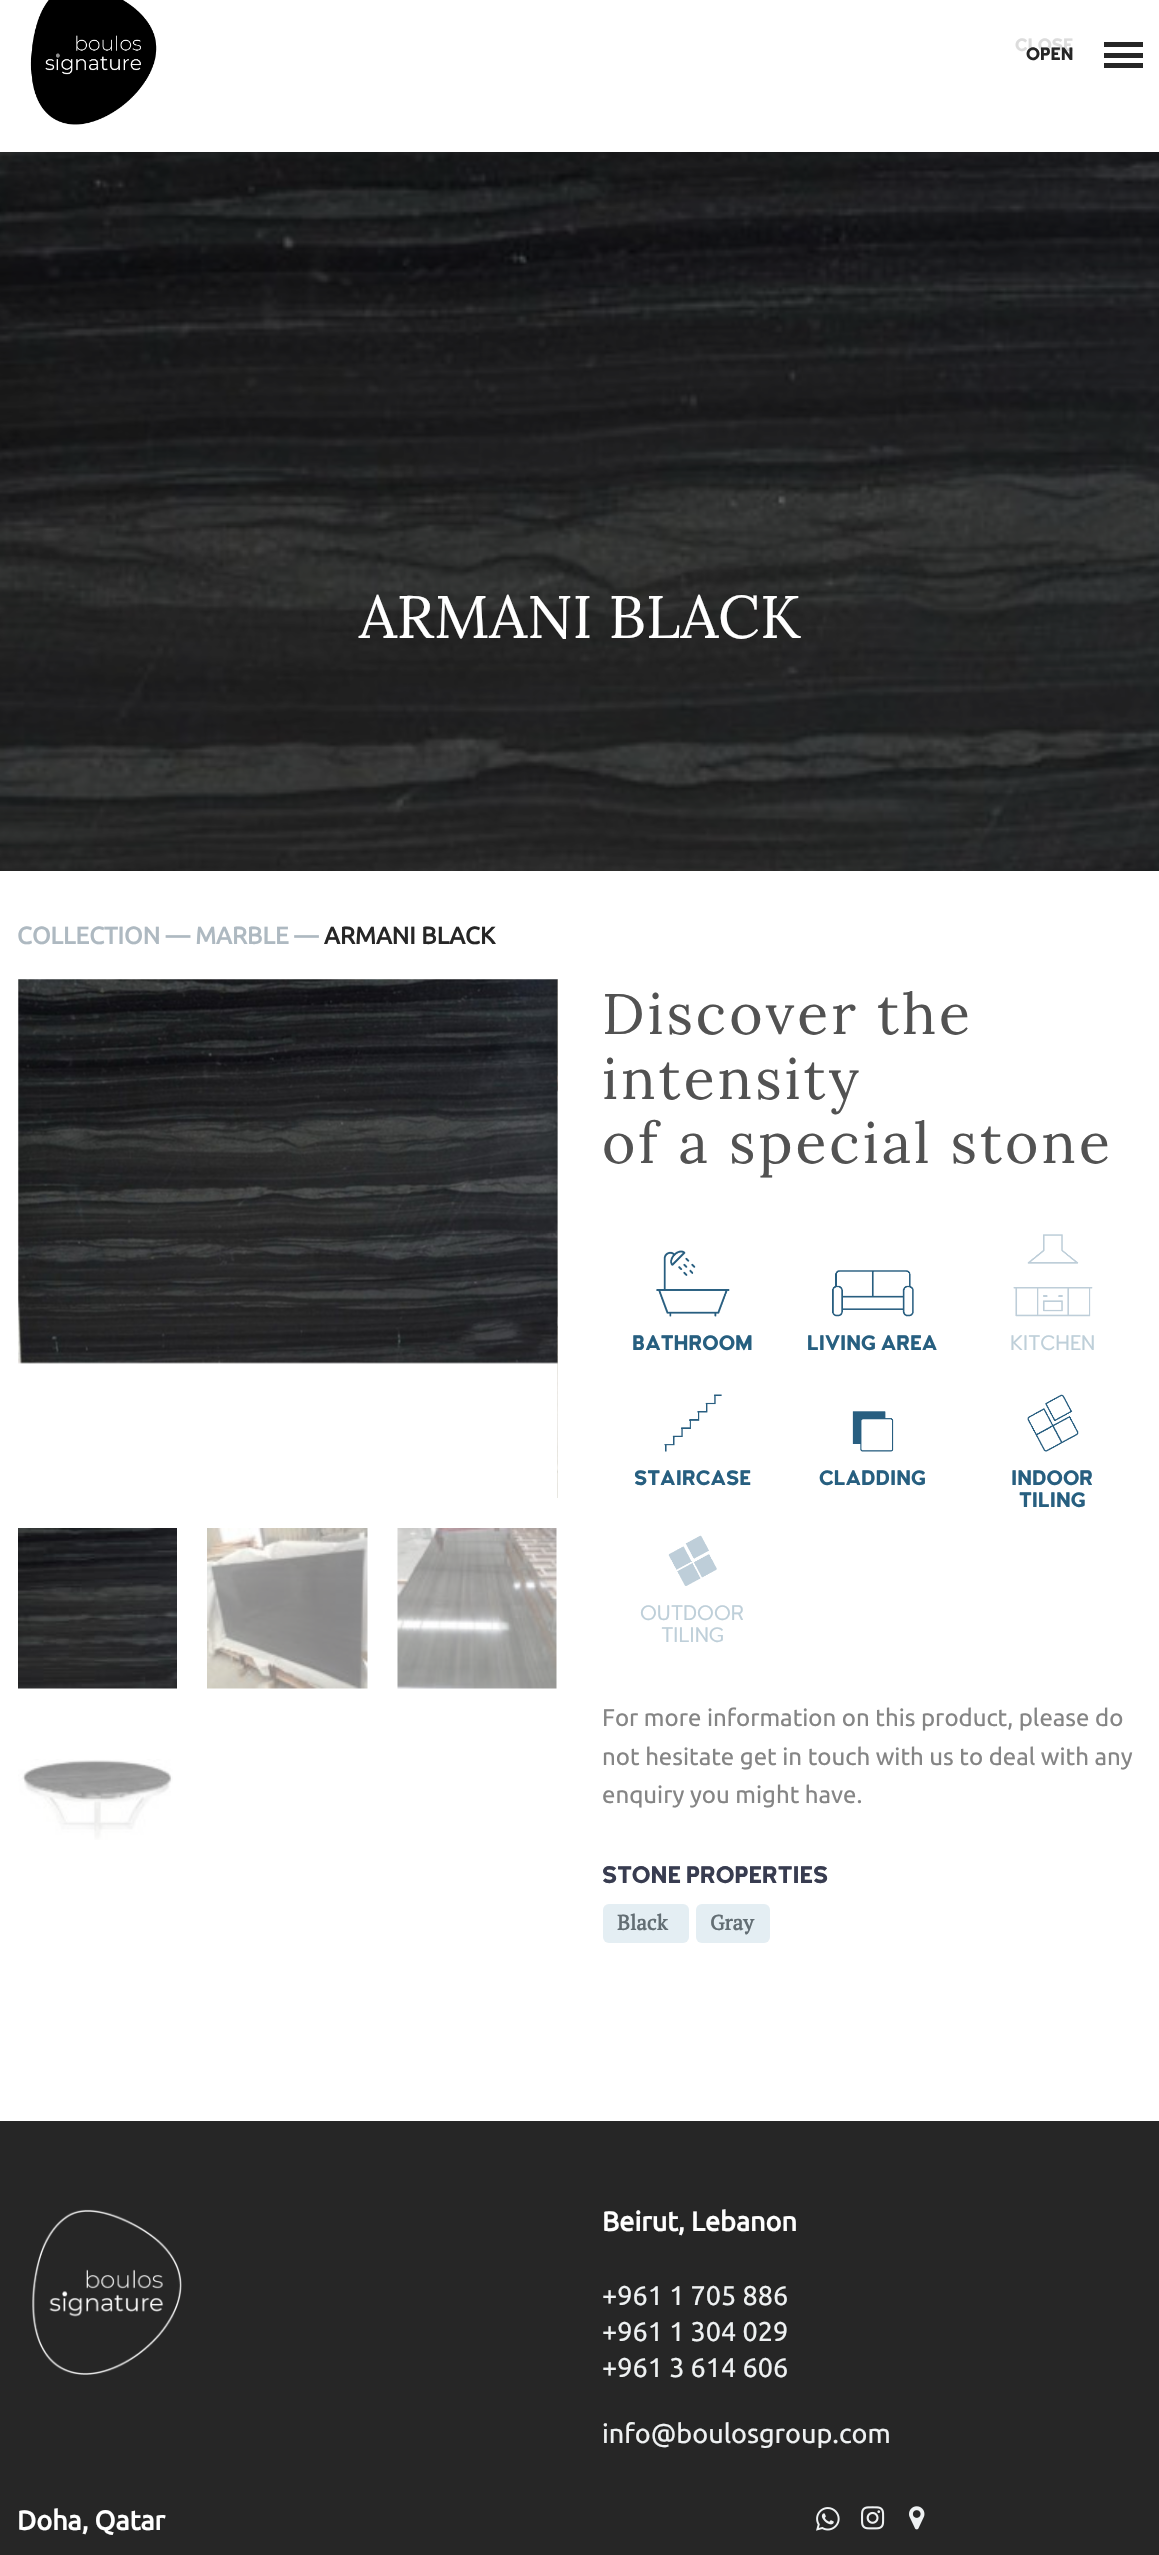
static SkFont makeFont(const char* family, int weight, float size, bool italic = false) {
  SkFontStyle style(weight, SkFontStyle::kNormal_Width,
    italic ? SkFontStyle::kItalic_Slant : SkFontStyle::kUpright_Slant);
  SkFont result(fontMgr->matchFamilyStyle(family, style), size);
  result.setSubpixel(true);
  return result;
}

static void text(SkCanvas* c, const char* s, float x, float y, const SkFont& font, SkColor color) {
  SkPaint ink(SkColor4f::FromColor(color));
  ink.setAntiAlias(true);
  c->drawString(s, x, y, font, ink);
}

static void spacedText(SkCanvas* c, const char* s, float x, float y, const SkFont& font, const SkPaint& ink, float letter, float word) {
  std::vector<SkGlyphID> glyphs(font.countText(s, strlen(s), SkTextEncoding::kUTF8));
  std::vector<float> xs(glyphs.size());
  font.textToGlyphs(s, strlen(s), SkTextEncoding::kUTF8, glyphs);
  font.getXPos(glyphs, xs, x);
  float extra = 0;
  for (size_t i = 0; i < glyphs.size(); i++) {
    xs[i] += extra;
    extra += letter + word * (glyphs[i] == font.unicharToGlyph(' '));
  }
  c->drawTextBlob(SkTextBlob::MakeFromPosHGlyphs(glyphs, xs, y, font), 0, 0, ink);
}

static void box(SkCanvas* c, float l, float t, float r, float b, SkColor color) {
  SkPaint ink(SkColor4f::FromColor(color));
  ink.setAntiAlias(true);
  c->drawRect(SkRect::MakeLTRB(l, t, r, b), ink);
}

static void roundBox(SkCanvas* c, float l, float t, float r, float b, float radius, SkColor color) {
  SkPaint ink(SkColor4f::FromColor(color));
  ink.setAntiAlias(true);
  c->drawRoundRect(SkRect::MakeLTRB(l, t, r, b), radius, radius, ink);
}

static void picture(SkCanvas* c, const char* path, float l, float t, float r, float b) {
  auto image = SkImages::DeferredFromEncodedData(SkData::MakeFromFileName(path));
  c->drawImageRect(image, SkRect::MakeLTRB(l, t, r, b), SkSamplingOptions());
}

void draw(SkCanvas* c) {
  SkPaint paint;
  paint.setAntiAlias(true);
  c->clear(0xffffffff);
  picture(c, "img_01.png", 30, 0, 157, 125);
  SkFont face1 = makeFont("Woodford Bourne", 700, 18);
  text(c, "CLOSE", 1015, 51, face1, 0xffdcdcdc);
  text(c, "OPEN", 1026, 60, face1, 0xff262626);
  box(c, 1104, 53, 1143, 58, 0xff262626);
  box(c, 1104, 42, 1143, 47, 0xff262626);
  box(c, 1104, 63, 1143, 68, 0xff262626);
  picture(c, "img_02.png", 0, 152, 1159, 871);
  SkFont face2 = makeFont("Lora", 400, 60);
  text(c, "ARMANI BLACK", 359, 638, face2, 0xffffffff);
  SkFont face3 = makeFont("Ubuntu", 700, 24);
  text(c, "COLLECTION — MARBLE —", 17, 944, face3, 0xffaeb9c1);
  text(c, "ARMANI BLACK", 324, 944, face3, 0xff262626);
  picture(c, "img_03.png", 18, 979, 558, 1364);
  picture(c, "img_04.png", 557, 979, 558, 1498);
  picture(c, "img_05.png", 18, 1528, 177, 1689);
  picture(c, "img_06.png", 207, 1528, 368, 1689);
  picture(c, "img_07.png", 397, 1528, 557, 1689);
  picture(c, "img_08.png", 18, 1759, 173, 1840);
  SkFont face4 = makeFont("Lora", 400, 57);
  paint.setColor(0xff525252);
  spacedText(c, "Discover the", 602, 1034, face4, paint, 3, 0);
  spacedText(c, "intensity", 602, 1099, face4, paint, 3, 0);
  spacedText(c, "of a special stone", 602, 1163, face4, paint, 3, 0);
  picture(c, "img_09.png", 656, 1250, 730, 1317);
  SkFont face5 = makeFont("Woodford Bourne", 700, 21);
  text(c, "BATHROOM", 632, 1350, face5, 0xff275f80);
  picture(c, "img_10.png", 832, 1270, 914, 1317);
  text(c, "LIVING AREA", 807, 1350, face5, 0xff275f80);
  picture(c, "img_11.png", 1013, 1234, 1093, 1317);
  SkFont face6 = makeFont("Woodford Bourne", 400, 21);
  text(c, "KITCHEN", 1010, 1350, face6, 0xffbecfd9);
  picture(c, "img_12.png", 664, 1394, 722, 1452);
  text(c, "STAIRCASE", 634, 1485, face5, 0xff275f80);
  picture(c, "img_13.png", 852, 1411, 894, 1452);
  text(c, "CLADDING", 819, 1485, face5, 0xff275f80);
  picture(c, "img_14.png", 1027, 1394, 1079, 1452);
  text(c, "INDOOR", 1011, 1485, face5, 0xff275f80);
  text(c, "TILING", 1019, 1507, face5, 0xff275f80);
  picture(c, "img_15.png", 668, 1535, 717, 1586);
  text(c, "OUTDOOR", 640, 1620, face6, 0xffbecfd9);
  text(c, "TILING", 661, 1642, face6, 0xffbecfd9);
  SkFont face7 = makeFont("Ubuntu", 400, 24);
  text(c, "For more information on this product, please do", 602, 1726, face7, 0xff858585);
  text(c, "not hesitate get in touch with us to deal with any", 602, 1765, face7, 0xff858585);
  text(c, "enquiry you might have.", 602, 1803, face7, 0xff858585);
  SkFont face8 = makeFont("Woodford Bourne", 700, 24);
  text(c, "STONE PROPERTIES", 602, 1883, face8, 0xff383c50);
  roundBox(c, 603, 1904, 689, 1943, 6, 0xffe4eef3);
  SkFont face9 = makeFont("PT Serif", 700, 21);
  text(c, "Black", 617, 1930, face9, 0xff636e74);
  roundBox(c, 696, 1904, 770, 1943, 6, 0xffe4eef3);
  text(c, "Gray", 710, 1930, face9, 0xff636e74);
  box(c, 0, 2121, 1159, 2555, 0xff262626);
  picture(c, "img_16.png", 32, 2209, 182, 2375);
  SkFont face10 = makeFont("Ubuntu", 700, 27);
  text(c, "Beirut, Lebanon", 602, 2231, face10, 0xffffffff);
  SkFont face11 = makeFont("Ubuntu", 400, 27);
  text(c, "+961 1 705 886", 602, 2305, face11, 0xffeef1f2);
  text(c, "+961 1 304 029", 602, 2341, face11, 0xffeef1f2);
  text(c, "+961 3 614 606", 602, 2377, face11, 0xffeef1f2);
  text(c, "info@boulosgroup.com", 602, 2443, face11, 0xffeef1f2);
  text(c, "Doha, Qatar", 17, 2530, face10, 0xffffffff);
  picture(c, "img_17.png", 816, 2507, 840, 2531);
  picture(c, "img_18.png", 861, 2506, 885, 2530);
  picture(c, "img_19.png", 909, 2506, 925, 2530);
}
